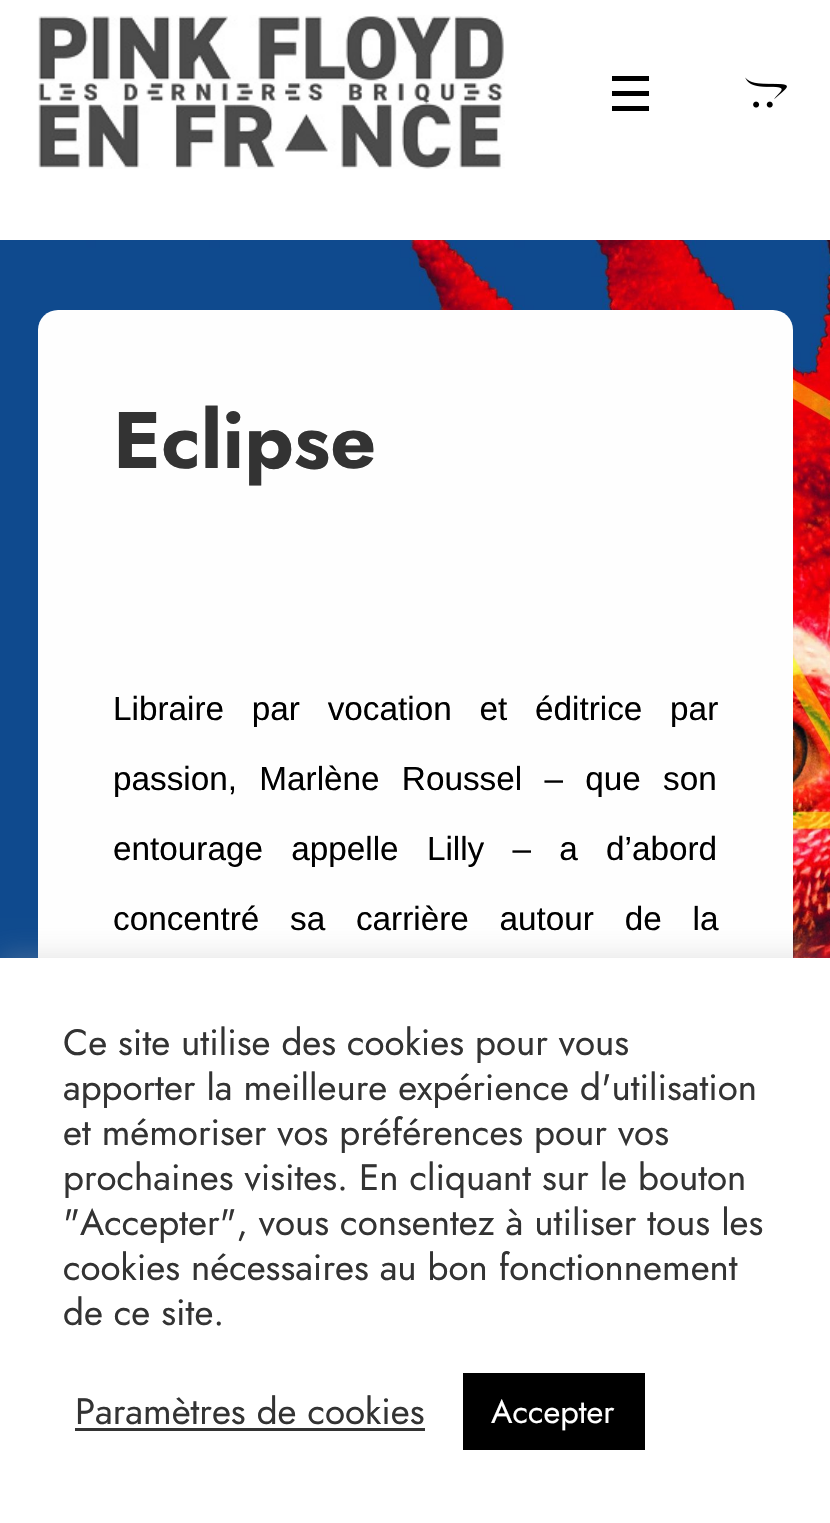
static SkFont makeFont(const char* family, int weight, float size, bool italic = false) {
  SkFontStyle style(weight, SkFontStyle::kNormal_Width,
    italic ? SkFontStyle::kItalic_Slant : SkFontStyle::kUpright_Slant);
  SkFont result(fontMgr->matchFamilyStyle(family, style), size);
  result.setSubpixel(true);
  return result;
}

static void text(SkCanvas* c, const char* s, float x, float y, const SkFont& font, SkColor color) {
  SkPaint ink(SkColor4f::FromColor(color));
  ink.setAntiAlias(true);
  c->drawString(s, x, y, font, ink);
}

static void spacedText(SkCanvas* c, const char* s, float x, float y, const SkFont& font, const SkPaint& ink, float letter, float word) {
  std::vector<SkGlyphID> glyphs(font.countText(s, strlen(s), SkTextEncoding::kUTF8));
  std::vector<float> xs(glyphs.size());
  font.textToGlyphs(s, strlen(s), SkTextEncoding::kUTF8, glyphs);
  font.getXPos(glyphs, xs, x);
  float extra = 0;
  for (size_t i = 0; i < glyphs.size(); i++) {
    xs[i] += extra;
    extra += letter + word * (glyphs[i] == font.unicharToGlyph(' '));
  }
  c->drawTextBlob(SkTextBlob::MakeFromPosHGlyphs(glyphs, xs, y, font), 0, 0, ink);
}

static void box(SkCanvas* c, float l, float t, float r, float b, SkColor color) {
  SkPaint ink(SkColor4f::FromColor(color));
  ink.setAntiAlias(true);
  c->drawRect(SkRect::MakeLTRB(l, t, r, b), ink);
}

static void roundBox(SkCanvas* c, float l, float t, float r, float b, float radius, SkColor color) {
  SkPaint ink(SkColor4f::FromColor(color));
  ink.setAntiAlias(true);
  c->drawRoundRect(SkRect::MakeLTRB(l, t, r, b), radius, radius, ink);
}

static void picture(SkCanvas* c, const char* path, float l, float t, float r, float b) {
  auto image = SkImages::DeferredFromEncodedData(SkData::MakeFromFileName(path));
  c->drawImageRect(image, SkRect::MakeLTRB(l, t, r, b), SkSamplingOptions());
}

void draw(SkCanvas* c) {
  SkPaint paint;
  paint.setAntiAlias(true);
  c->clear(0xffffffff);
  picture(c, "img_01.png", 0, 240, 830, 958);
  picture(c, "img_02.png", 38, 15, 505, 169);
  box(c, 612, 76, 649, 81, 0xff000000);
  box(c, 612, 91, 649, 96, 0xff000000);
  box(c, 612, 106, 649, 111, 0xff000000);
  picture(c, "img_03.png", 745, 77, 787, 108);
  roundBox(c, 38, 310, 793, 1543, 20, 0xfffefefe);
  SkFont face1 = makeFont("Jost", 700, 80);
  text(c, "Eclipse", 113, 468, face1, 0xff333333);
  SkFont face2 = makeFont("Liberation Sans", 400, 33.3f);
  paint.setColor(0xff000000);
  spacedText(c, "Libraire par vocation et éditrice par", 113, 720, face2, paint, 0, 18.5f);
  spacedText(c, "passion, Marlène Roussel – que son", 113, 790, face2, paint, 0, 13);
  spacedText(c, "entourage appelle Lilly – a d’abord", 113, 860, face2, paint, 0, 19);
  spacedText(c, "concentré sa carrière autour de la", 113, 930, face2, paint, 0, 21.5f);
  paint.setColor(0x4dacabab);
  paint.setMaskFilter(SkMaskFilter::MakeBlur(kNormal_SkBlurStyle, 12.5f));
  c->drawRect(SkRect::MakeLTRB(0, 955, 830, 1523), paint);
  paint.setMaskFilter(nullptr);
  box(c, 0, 958, 830, 1523, 0xffffffff);
  SkFont face3 = makeFont("Jost", 400, 36.7f);
  text(c, "Ce site utilise des cookies pour vous", 63, 1055, face3, 0xff333333);
  text(c, "apporter la meilleure expérience d'utilisation", 63, 1100, face3, 0xff333333);
  text(c, "et mémoriser vos préférences pour vos", 63, 1145, face3, 0xff333333);
  text(c, "prochaines visites. En cliquant sur le bouton", 63, 1190, face3, 0xff333333);
  text(c, "\"Accepter\", vous consentez à utiliser tous les", 63, 1235, face3, 0xff333333);
  text(c, "cookies nécessaires au bon fonctionnement", 63, 1280, face3, 0xff333333);
  text(c, "de ce site.", 63, 1325, face3, 0xff333333);
  text(c, "Paramètres de cookies", 75, 1424, face3, 0xff333333);
  box(c, 75, 1428, 425, 1431, 0xff333333);
  box(c, 463, 1373, 645, 1450, 0xff000000);
  SkFont face4 = makeFont("Jost", 400, 32.5f);
  text(c, "Accepter", 491, 1423, face4, 0xffffffff);
}
